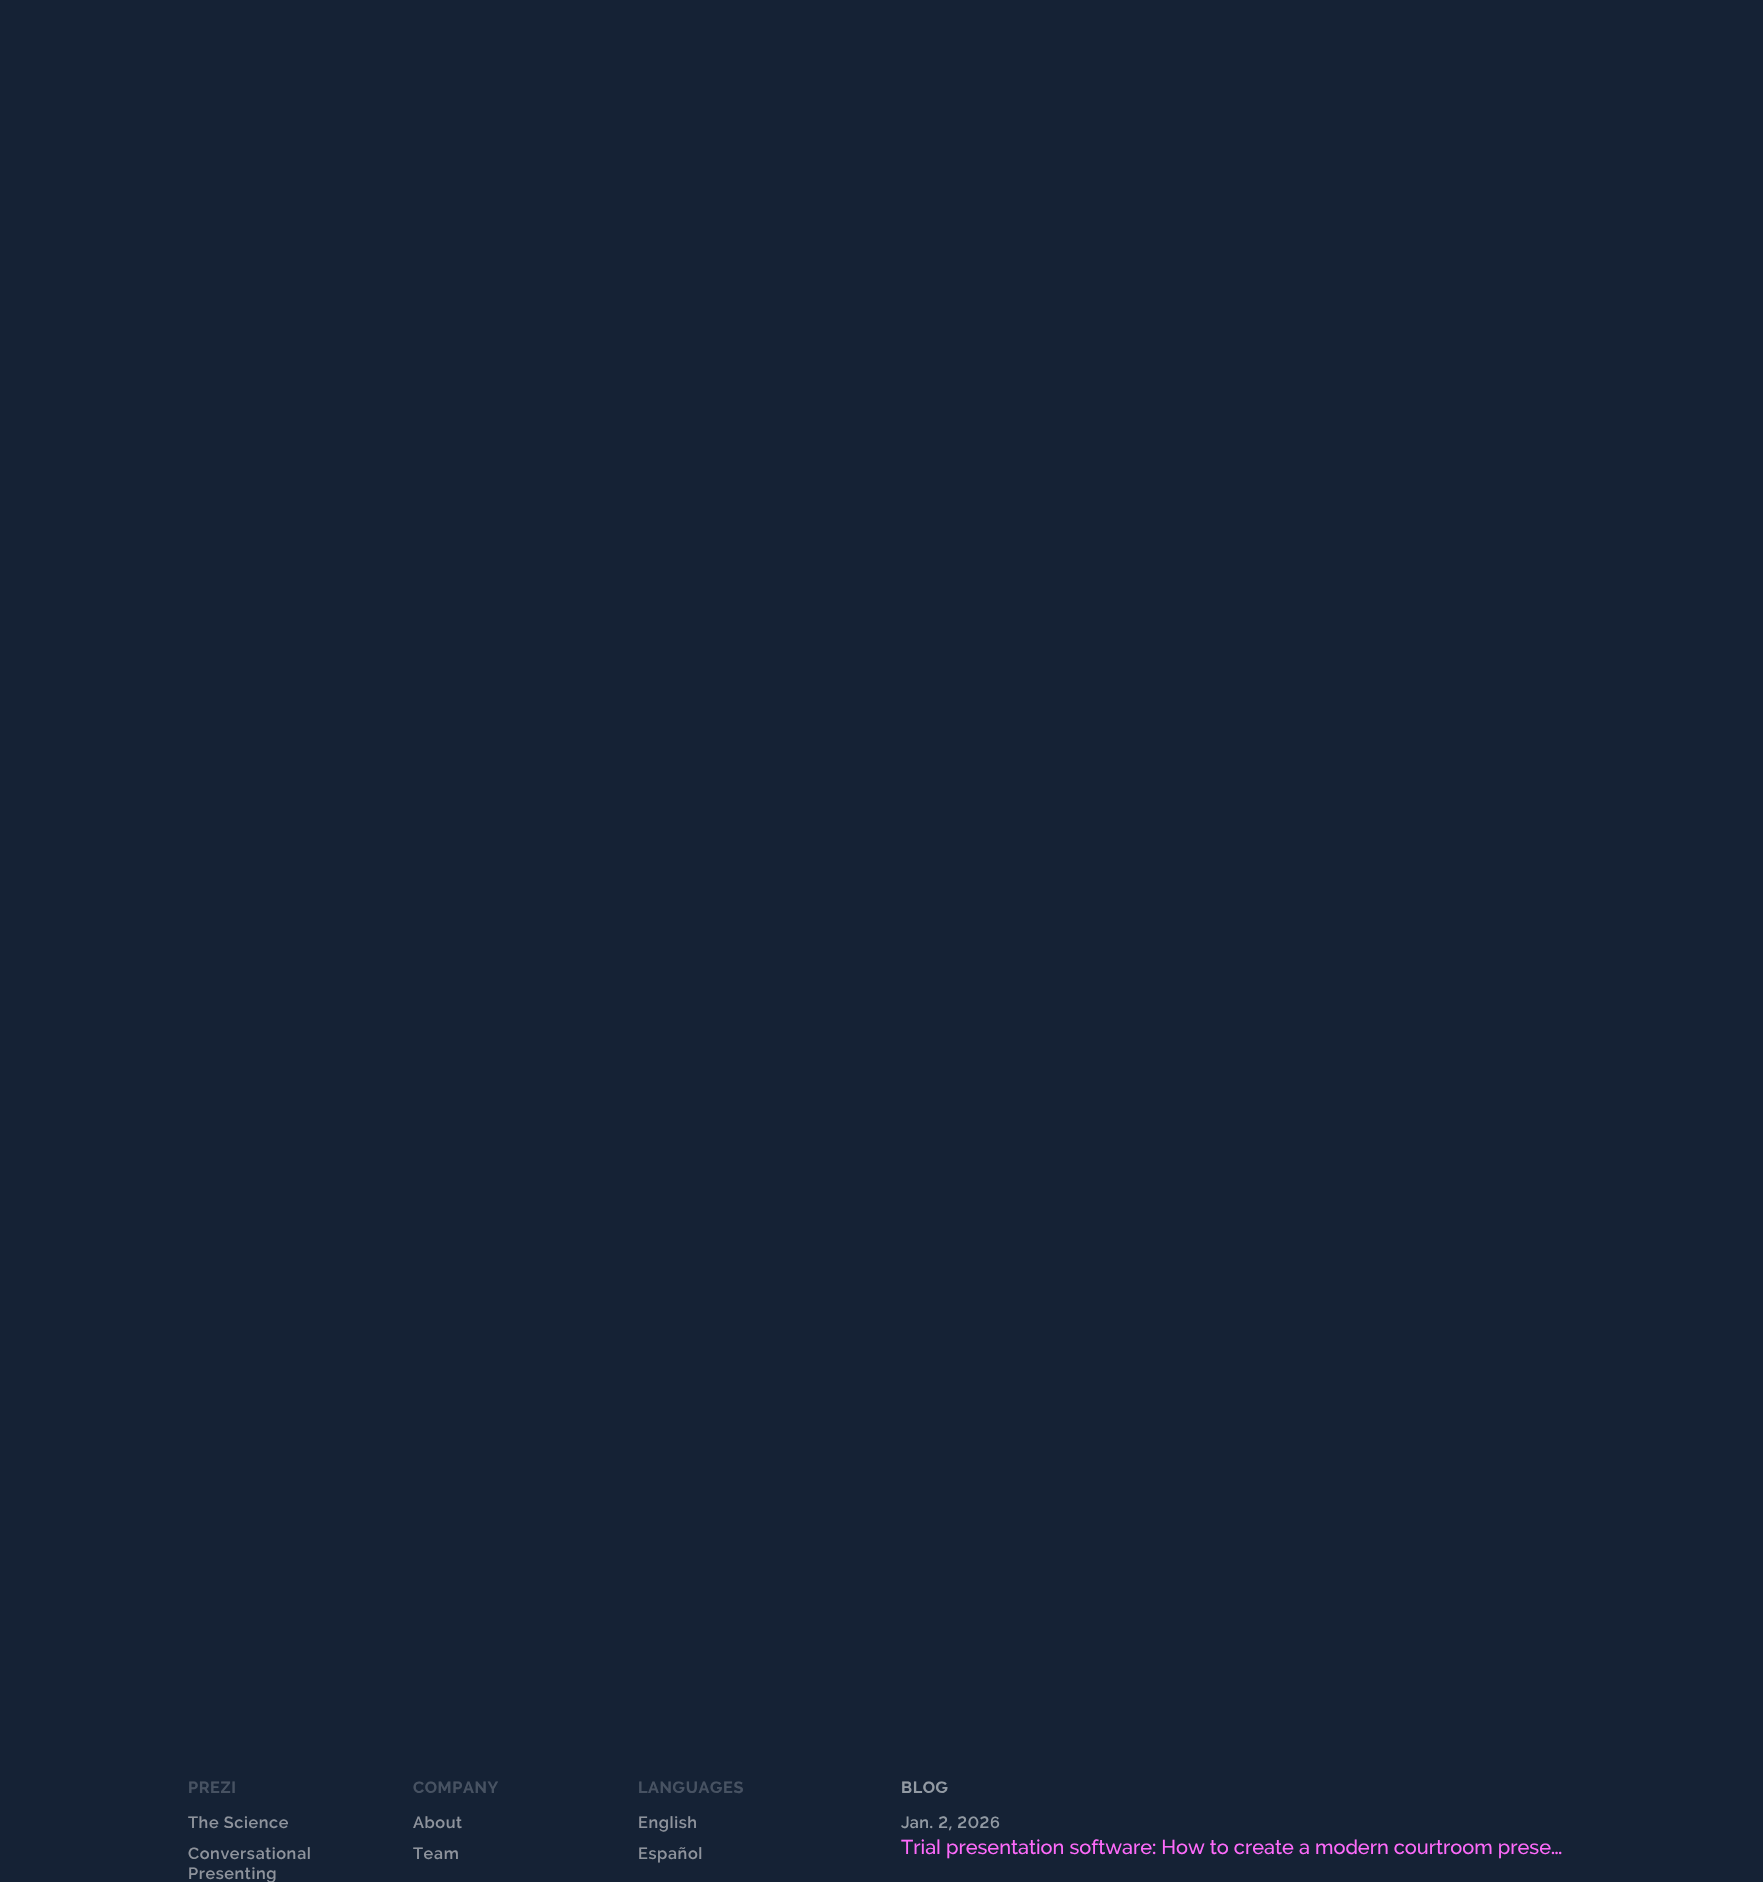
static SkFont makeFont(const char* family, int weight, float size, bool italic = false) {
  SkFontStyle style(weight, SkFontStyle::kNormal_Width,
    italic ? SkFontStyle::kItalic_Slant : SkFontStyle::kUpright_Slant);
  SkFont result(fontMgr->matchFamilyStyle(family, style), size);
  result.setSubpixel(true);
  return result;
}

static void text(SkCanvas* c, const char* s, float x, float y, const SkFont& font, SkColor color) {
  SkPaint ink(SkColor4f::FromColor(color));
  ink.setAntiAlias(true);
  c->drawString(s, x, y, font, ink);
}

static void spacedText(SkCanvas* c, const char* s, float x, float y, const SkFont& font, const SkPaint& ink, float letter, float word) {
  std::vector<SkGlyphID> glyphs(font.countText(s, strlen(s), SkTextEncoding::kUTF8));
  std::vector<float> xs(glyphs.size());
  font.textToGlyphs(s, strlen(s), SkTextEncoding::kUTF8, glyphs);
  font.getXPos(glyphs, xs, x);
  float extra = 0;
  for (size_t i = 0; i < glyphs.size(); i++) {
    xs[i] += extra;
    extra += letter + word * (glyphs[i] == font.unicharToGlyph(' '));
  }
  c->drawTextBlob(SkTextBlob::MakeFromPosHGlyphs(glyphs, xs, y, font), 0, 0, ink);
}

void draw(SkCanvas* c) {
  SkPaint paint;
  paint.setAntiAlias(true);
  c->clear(0xff152235);
  SkFont face1 = makeFont("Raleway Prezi", 700, 16.25f);
  paint.setColor(0xff475262);
  spacedText(c, "PREZI", 188, 1793, face1, paint, 0.6f, 0);
  SkFont face2 = makeFont("Raleway Prezi", 600, 16.25f);
  paint.setColor(0xff8e939c);
  spacedText(c, "The Science", 188, 1828, face2, paint, 0.6f, 0);
  spacedText(c, "Conversational", 188, 1859, face2, paint, 0.6f, 0);
  spacedText(c, "Presenting", 188, 1879, face2, paint, 0.6f, 0);
  paint.setColor(0xff475262);
  spacedText(c, "COMPANY", 413, 1793, face1, paint, 0.6f, 0);
  paint.setColor(0xff8e939c);
  spacedText(c, "About", 413, 1828, face2, paint, 0.6f, 0);
  spacedText(c, "Team", 413, 1859, face2, paint, 0.6f, 0);
  paint.setColor(0xff475262);
  spacedText(c, "LANGUAGES", 638, 1793, face1, paint, 0.6f, 0);
  paint.setColor(0xff8e939c);
  spacedText(c, "English", 638, 1828, face2, paint, 0.6f, 0);
  spacedText(c, "Español", 638, 1859, face2, paint, 0.6f, 0);
  paint.setColor(0xff929aa3);
  spacedText(c, "BLOG", 901, 1793, face1, paint, 0.6f, 0);
  spacedText(c, "Jan. 2, 2026", 901, 1828, face2, paint, 0.6f, 0);
  SkFont face3 = makeFont("Raleway Prezi", 500, 20);
  text(c, "Trial presentation software: How to create a modern courtroom prese…", 901, 1854, face3, 0xfffd6afa);
}
